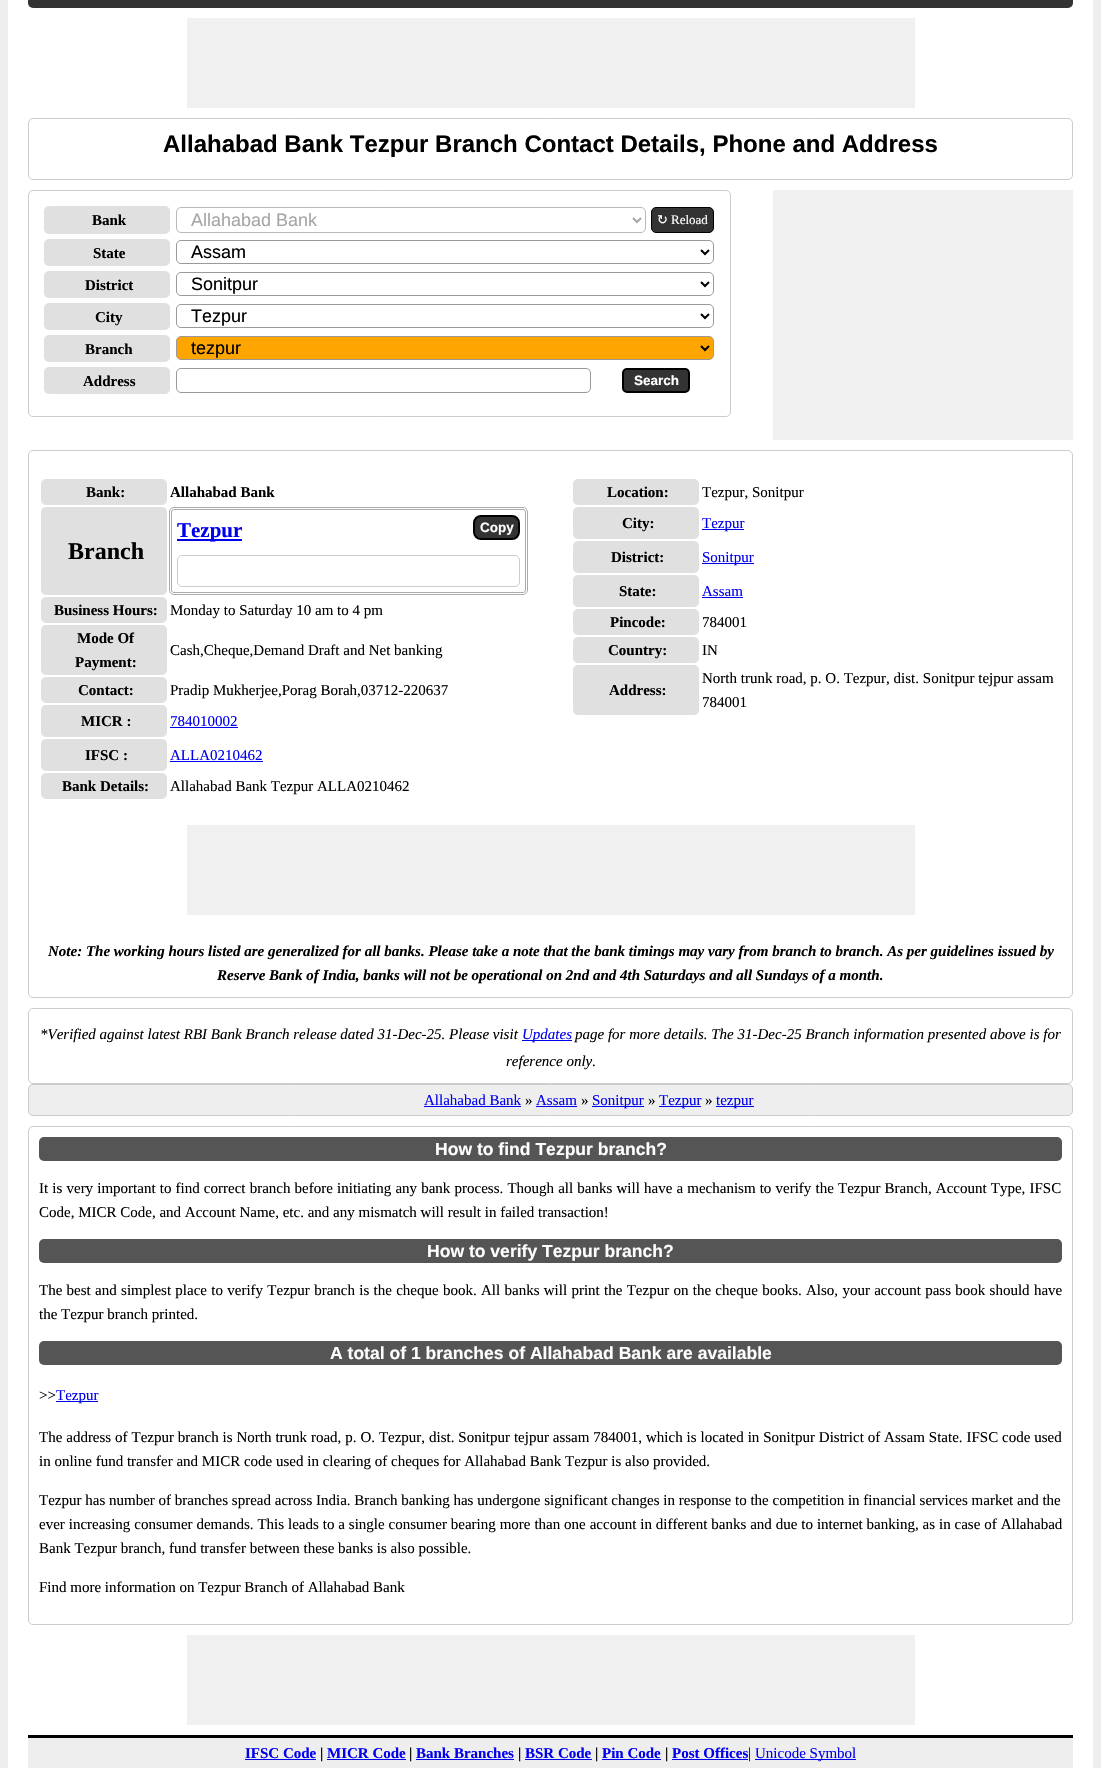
static SkFont makeFont(const char* family, int weight, float size, bool italic = false) {
  SkFontStyle style(weight, SkFontStyle::kNormal_Width,
    italic ? SkFontStyle::kItalic_Slant : SkFontStyle::kUpright_Slant);
  SkFont result(fontMgr->matchFamilyStyle(family, style), size);
  result.setSubpixel(true);
  return result;
}

static void text(SkCanvas* c, const char* s, float x, float y, const SkFont& font, SkColor color) {
  SkPaint ink(SkColor4f::FromColor(color));
  ink.setAntiAlias(true);
  c->drawString(s, x, y, font, ink);
}

static void spacedText(SkCanvas* c, const char* s, float x, float y, const SkFont& font, const SkPaint& ink, float letter, float word) {
  std::vector<SkGlyphID> glyphs(font.countText(s, strlen(s), SkTextEncoding::kUTF8));
  std::vector<float> xs(glyphs.size());
  font.textToGlyphs(s, strlen(s), SkTextEncoding::kUTF8, glyphs);
  font.getXPos(glyphs, xs, x);
  float extra = 0;
  for (size_t i = 0; i < glyphs.size(); i++) {
    xs[i] += extra;
    extra += letter + word * (glyphs[i] == font.unicharToGlyph(' '));
  }
  c->drawTextBlob(SkTextBlob::MakeFromPosHGlyphs(glyphs, xs, y, font), 0, 0, ink);
}

static void box(SkCanvas* c, float l, float t, float r, float b, SkColor color) {
  SkPaint ink(SkColor4f::FromColor(color));
  ink.setAntiAlias(true);
  c->drawRect(SkRect::MakeLTRB(l, t, r, b), ink);
}

static void roundBox(SkCanvas* c, float l, float t, float r, float b, float radius, SkColor color) {
  SkPaint ink(SkColor4f::FromColor(color));
  ink.setAntiAlias(true);
  c->drawRoundRect(SkRect::MakeLTRB(l, t, r, b), radius, radius, ink);
}

void draw(SkCanvas* c) {
  SkPaint paint;
  paint.setAntiAlias(true);
  c->clear(0xffeeeeee);
  box(c, 8, 0, 1093, 1768, 0xffffffff);
  roundBox(c, 28, -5, 1073, 8, 5, 0xff333333);
  box(c, 187, 18, 915, 108, 0xfff0f0f0);
  paint.setStyle(SkPaint::kStroke_Style);
  paint.setStrokeWidth(1);
  paint.setColor(0xffcccccc);
  c->drawRoundRect(SkRect::MakeLTRB(28.5f, 118.5f, 1072.5f, 179.5f), 4.5f, 4.5f, paint);
  SkFont face1 = makeFont("Liberation Sans", 700, 24);
  text(c, "Allahabad Bank Tezpur Branch Contact Details, Phone and Address", 163, 152, face1, 0xff000000);
  c->drawRoundRect(SkRect::MakeLTRB(28.5f, 190.5f, 730.5f, 416.5f), 4.5f, 4.5f, paint);
  roundBox(c, 44, 206, 170, 234, 5, 0xffe0e0e0);
  SkFont face2 = makeFont("Liberation Serif", 700, 15);
  text(c, "Bank", 92, 225, face2, 0xff000000);
  paint.setColor(0xffb8b8b8);
  c->drawRoundRect(SkRect::MakeLTRB(176.5f, 207.5f, 645.5f, 232.5f), 4.5f, 4.5f, paint);
  paint.setStrokeWidth(2);
  paint.setColor(0xffa6a6a6);
  c->drawPath(SkPathBuilder().moveTo(633, 218).lineTo(637, 222).lineTo(641, 218).detach(), paint);
  SkFont face3 = makeFont("Liberation Sans", 400, 18);
  text(c, "Allahabad Bank", 191, 226, face3, 0xffa6a6a6);
  paint.setStyle(SkPaint::kFill_Style);
  paint.setColor(0xff333333);
  c->drawRoundRect(SkRect::MakeLTRB(651.5f, 207.5f, 713.5f, 232.5f), 4.5f, 4.5f, paint);
  paint.setStyle(SkPaint::kStroke_Style);
  paint.setStrokeWidth(1);
  paint.setColor(0xff000000);
  c->drawRoundRect(SkRect::MakeLTRB(651.5f, 207.5f, 713.5f, 232.5f), 4.5f, 4.5f, paint);
  SkFont face4 = makeFont("DejaVu Sans", 400, 13);
  text(c, "↻", 657, 224, face4, 0xffffffff);
  SkFont face5 = makeFont("Liberation Serif", 400, 13);
  text(c, "Reload", 671, 224, face5, 0xffffffff);
  roundBox(c, 44, 239, 170, 266, 5, 0xffe0e0e0);
  text(c, "State", 93, 258, face2, 0xff000000);
  paint.setColor(0xff999999);
  c->drawRoundRect(SkRect::MakeLTRB(176.5f, 240.5f, 713.5f, 263.5f), 4.5f, 4.5f, paint);
  paint.setStrokeWidth(2);
  paint.setColor(0xff000000);
  c->drawPath(SkPathBuilder().moveTo(701, 250).lineTo(705, 254).lineTo(709, 250).detach(), paint);
  text(c, "Assam", 191, 258, face3, 0xff000000);
  roundBox(c, 44, 271, 170, 298, 5, 0xffe0e0e0);
  text(c, "District", 85, 290, face2, 0xff000000);
  paint.setStrokeWidth(1);
  paint.setColor(0xff999999);
  c->drawRoundRect(SkRect::MakeLTRB(176.5f, 272.5f, 713.5f, 295.5f), 4.5f, 4.5f, paint);
  paint.setStrokeWidth(2);
  paint.setColor(0xff000000);
  c->drawPath(SkPathBuilder().moveTo(701, 282).lineTo(705, 286).lineTo(709, 282).detach(), paint);
  text(c, "Sonitpur", 191, 290, face3, 0xff000000);
  roundBox(c, 44, 303, 170, 330, 5, 0xffe0e0e0);
  text(c, "City", 95, 322, face2, 0xff000000);
  paint.setStrokeWidth(1);
  paint.setColor(0xff999999);
  c->drawRoundRect(SkRect::MakeLTRB(176.5f, 304.5f, 713.5f, 327.5f), 4.5f, 4.5f, paint);
  paint.setStrokeWidth(2);
  paint.setColor(0xff000000);
  c->drawPath(SkPathBuilder().moveTo(701, 314).lineTo(705, 318).lineTo(709, 314).detach(), paint);
  text(c, "Tezpur", 191, 322, face3, 0xff000000);
  roundBox(c, 44, 335, 170, 362, 5, 0xffe0e0e0);
  text(c, "Branch", 85, 354, face2, 0xff000000);
  paint.setStyle(SkPaint::kFill_Style);
  paint.setColor(0xffffa500);
  c->drawRoundRect(SkRect::MakeLTRB(176.5f, 336.5f, 713.5f, 359.5f), 4.5f, 4.5f, paint);
  paint.setStyle(SkPaint::kStroke_Style);
  paint.setStrokeWidth(1);
  paint.setColor(0xff999999);
  c->drawRoundRect(SkRect::MakeLTRB(176.5f, 336.5f, 713.5f, 359.5f), 4.5f, 4.5f, paint);
  paint.setStrokeWidth(2);
  paint.setColor(0xff000000);
  c->drawPath(SkPathBuilder().moveTo(701, 346).lineTo(705, 350).lineTo(709, 346).detach(), paint);
  text(c, "tezpur", 191, 354, face3, 0xff000000);
  roundBox(c, 44, 367, 170, 394, 5, 0xffe0e0e0);
  text(c, "Address", 83, 386, face2, 0xff000000);
  paint.setStrokeWidth(1);
  paint.setColor(0xff999999);
  c->drawRoundRect(SkRect::MakeLTRB(176.5f, 368.5f, 590.5f, 392.5f), 4.5f, 4.5f, paint);
  paint.setStyle(SkPaint::kFill_Style);
  paint.setColor(0xff333333);
  c->drawRoundRect(SkRect::MakeLTRB(623, 369, 689, 392), 4, 4, paint);
  paint.setStyle(SkPaint::kStroke_Style);
  paint.setStrokeWidth(2);
  paint.setColor(0xff000000);
  c->drawRoundRect(SkRect::MakeLTRB(623, 369, 689, 392), 4, 4, paint);
  SkFont face6 = makeFont("Liberation Sans", 700, 13.5f);
  text(c, "Search", 634, 385, face6, 0xffffffff);
  box(c, 773, 190, 1073, 440, 0xfff0f0f0);
  paint.setStrokeWidth(1);
  paint.setColor(0xffcccccc);
  c->drawRoundRect(SkRect::MakeLTRB(28.5f, 450.5f, 1072.5f, 997.5f), 4.5f, 4.5f, paint);
  roundBox(c, 41, 479, 167, 505, 5, 0xffe0e0e0);
  text(c, "Bank:", 86, 497, face2, 0xff000000);
  text(c, "Allahabad Bank", 170, 497, face2, 0xff000000);
  paint.setColor(0xffaaaaaa);
  c->drawRoundRect(SkRect::MakeLTRB(169.5f, 507.5f, 527.5f, 594.5f), 4.5f, 4.5f, paint);
  c->drawRoundRect(SkRect::MakeLTRB(171.5f, 509.5f, 525.5f, 592.5f), 2.5f, 2.5f, paint);
  box(c, 177, 539, 242, 541, 0xff0000ee);
  SkFont face7 = makeFont("Liberation Serif", 700, 21);
  text(c, "Tezpur", 177, 537, face7, 0xff0000ee);
  paint.setStyle(SkPaint::kFill_Style);
  paint.setColor(0xff333333);
  c->drawRoundRect(SkRect::MakeLTRB(474, 516, 519, 539), 7, 7, paint);
  paint.setStyle(SkPaint::kStroke_Style);
  paint.setStrokeWidth(2);
  paint.setColor(0xff000000);
  c->drawRoundRect(SkRect::MakeLTRB(474, 516, 519, 539), 7, 7, paint);
  text(c, "Copy", 480, 532, face6, 0xffffffff);
  paint.setStrokeWidth(1);
  paint.setColor(0xffcccccc);
  c->drawRoundRect(SkRect::MakeLTRB(177.5f, 555.5f, 519.5f, 586.5f), 4.5f, 4.5f, paint);
  roundBox(c, 41, 507, 167, 595, 5, 0xffe0e0e0);
  SkFont face8 = makeFont("Liberation Serif", 700, 24);
  text(c, "Branch", 68, 559, face8, 0xff000000);
  roundBox(c, 41, 597, 167, 623, 5, 0xffe0e0e0);
  text(c, "Business Hours:", 54, 615, face2, 0xff000000);
  SkFont face9 = makeFont("Liberation Serif", 400, 15);
  text(c, "Monday to Saturday 10 am to 4 pm", 170, 615, face9, 0xff000000);
  roundBox(c, 41, 625, 167, 675, 5, 0xffe0e0e0);
  text(c, "Mode Of", 77, 643, face2, 0xff000000);
  text(c, "Payment:", 75, 667, face2, 0xff000000);
  text(c, "Cash,Cheque,Demand Draft and Net banking", 170, 655, face9, 0xff000000);
  roundBox(c, 41, 677, 167, 703, 5, 0xffe0e0e0);
  text(c, "Contact:", 78, 695, face2, 0xff000000);
  text(c, "Pradip Mukherjee,Porag Borah,03712-220637", 170, 695, face9, 0xff000000);
  roundBox(c, 41, 705, 167, 737, 5, 0xffe0e0e0);
  text(c, "MICR :", 81, 726, face2, 0xff000000);
  text(c, "784010002", 170, 726, face9, 0xff0000ee);
  box(c, 170, 727, 238, 728, 0xff0000ee);
  roundBox(c, 41, 739, 167, 771, 5, 0xffe0e0e0);
  text(c, "IFSC :", 85, 760, face2, 0xff000000);
  text(c, "ALLA0210462", 170, 760, face9, 0xff0000ee);
  box(c, 170, 761, 263, 762, 0xff0000ee);
  roundBox(c, 41, 773, 167, 799, 5, 0xffe0e0e0);
  text(c, "Bank Details:", 62, 791, face2, 0xff000000);
  text(c, "Allahabad Bank Tezpur ALLA0210462", 170, 791, face9, 0xff000000);
  roundBox(c, 573, 479, 699, 505, 5, 0xffe0e0e0);
  text(c, "Location:", 607, 497, face2, 0xff000000);
  text(c, "Tezpur, Sonitpur", 702, 497, face9, 0xff000000);
  roundBox(c, 573, 507, 699, 539, 5, 0xffe0e0e0);
  text(c, "City:", 622, 528, face2, 0xff000000);
  box(c, 702, 529, 744, 530, 0xff0000ee);
  text(c, "Tezpur", 702, 528, face9, 0xff0000ee);
  roundBox(c, 573, 541, 699, 573, 5, 0xffe0e0e0);
  text(c, "District:", 611, 562, face2, 0xff000000);
  box(c, 702, 563, 754, 564, 0xff0000ee);
  text(c, "Sonitpur", 702, 562, face9, 0xff0000ee);
  roundBox(c, 573, 575, 699, 607, 5, 0xffe0e0e0);
  text(c, "State:", 619, 596, face2, 0xff000000);
  text(c, "Assam", 702, 596, face9, 0xff0000ee);
  box(c, 702, 597, 743, 598, 0xff0000ee);
  roundBox(c, 573, 609, 699, 635, 5, 0xffe0e0e0);
  text(c, "Pincode:", 610, 627, face2, 0xff000000);
  text(c, "784001", 702, 627, face9, 0xff000000);
  roundBox(c, 573, 637, 699, 663, 5, 0xffe0e0e0);
  text(c, "Country:", 608, 655, face2, 0xff000000);
  text(c, "IN", 702, 655, face9, 0xff000000);
  roundBox(c, 573, 665, 699, 715, 5, 0xffe0e0e0);
  text(c, "Address:", 609, 695, face2, 0xff000000);
  text(c, "North trunk road, p. O. Tezpur, dist. Sonitpur tejpur assam", 702, 683, face9, 0xff000000);
  text(c, "784001", 702, 707, face9, 0xff000000);
  box(c, 187, 825, 915, 915, 0xfff0f0f0);
  SkFont face10 = makeFont("Liberation Serif", 700, 15, true);
  text(c, "Note: The working hours listed are generalized for all banks. Please take a note that the bank timings may vary from branch to branch. As per guidelines issued by", 48, 956, face10, 0xff000000);
  text(c, "Reserve Bank of India, banks will not be operational on 2nd and 4th Saturdays and all Sundays of a month.", 217, 980, face10, 0xff000000);
  c->drawRoundRect(SkRect::MakeLTRB(28.5f, 1008.5f, 1072.5f, 1083.5f), 4.5f, 4.5f, paint);
  SkFont face11 = makeFont("Liberation Serif", 400, 15, true);
  text(c, "*Verified against latest RBI Bank Branch release dated 31-Dec-25. Please visit", 40, 1039, face11, 0xff000000);
  box(c, 522, 1040, 572, 1041, 0xff0000ee);
  text(c, "Updates", 522, 1039, face11, 0xff0000ee);
  text(c, "page for more details. The 31-Dec-25 Branch information presented above is for", 575, 1039, face11, 0xff000000);
  text(c, "reference only.", 506, 1066, face11, 0xff000000);
  paint.setStyle(SkPaint::kFill_Style);
  paint.setColor(0xffeeeeee);
  c->drawRoundRect(SkRect::MakeLTRB(28.5f, 1084.5f, 1072.5f, 1115.5f), 4.5f, 4.5f, paint);
  paint.setStyle(SkPaint::kStroke_Style);
  paint.setColor(0xffcccccc);
  c->drawRoundRect(SkRect::MakeLTRB(28.5f, 1084.5f, 1072.5f, 1115.5f), 4.5f, 4.5f, paint);
  text(c, "Allahabad Bank", 424, 1105, face9, 0xff0000ee);
  box(c, 424, 1106, 521, 1107, 0xff0000ee);
  text(c, "»", 525, 1105, face9, 0xff000000);
  text(c, "Assam", 536, 1105, face9, 0xff0000ee);
  box(c, 536, 1106, 577, 1107, 0xff0000ee);
  text(c, "»", 581, 1105, face9, 0xff000000);
  box(c, 592, 1106, 644, 1107, 0xff0000ee);
  text(c, "Sonitpur", 592, 1105, face9, 0xff0000ee);
  text(c, "»", 648, 1105, face9, 0xff000000);
  box(c, 659, 1106, 701, 1107, 0xff0000ee);
  text(c, "Tezpur", 659, 1105, face9, 0xff0000ee);
  text(c, "»", 705, 1105, face9, 0xff000000);
  box(c, 716, 1106, 754, 1107, 0xff0000ee);
  text(c, "tezpur", 716, 1105, face9, 0xff0000ee);
  c->drawRoundRect(SkRect::MakeLTRB(28.5f, 1126.5f, 1072.5f, 1624.5f), 4.5f, 4.5f, paint);
  roundBox(c, 39, 1137, 1062, 1161, 5, 0xff555555);
  SkFont face12 = makeFont("Liberation Sans", 700, 17.55f);
  text(c, "How to find Tezpur branch?", 435, 1155, face12, 0xffffffff);
  paint.setStyle(SkPaint::kFill_Style);
  paint.setColor(0xff000000);
  spacedText(c, "It is very important to find correct branch before initiating any bank process. Though all banks will have a mechanism to verify the Tezpur Branch, Account Type, IFSC", 39, 1193, face9, paint, 0, 0.4f);
  text(c, "Code, MICR Code, and Account Name, etc. and any mismatch will result in failed transaction!", 39, 1217, face9, 0xff000000);
  roundBox(c, 39, 1239, 1062, 1263, 5, 0xff555555);
  text(c, "How to verify Tezpur branch?", 427, 1257, face12, 0xffffffff);
  spacedText(c, "The best and simplest place to verify Tezpur branch is the cheque book. All banks will print the Tezpur on the cheque books. Also, your account pass book should have", 39, 1295, face9, paint, 0, 0.55f);
  text(c, "the Tezpur branch printed.", 39, 1319, face9, 0xff000000);
  roundBox(c, 39, 1341, 1062, 1365, 5, 0xff555555);
  text(c, "A total of 1 branches of Allahabad Bank are available", 330, 1359, face12, 0xffffffff);
  text(c, ">>", 39, 1400, face9, 0xff000000);
  box(c, 56, 1401, 98, 1402, 0xff0000ee);
  text(c, "Tezpur", 56, 1400, face9, 0xff0000ee);
  spacedText(c, "The address of Tezpur branch is North trunk road, p. O. Tezpur, dist. Sonitpur tejpur assam 784001, which is located in Sonitpur District of Assam State. IFSC code used", 39, 1442, face9, paint, 0, 0.15f);
  text(c, "in online fund transfer and MICR code used in clearing of cheques for Allahabad Bank Tezpur is also provided.", 39, 1466, face9, 0xff000000);
  text(c, "Tezpur has number of branches spread across India. Branch banking has undergone significant changes in response to the competition in financial services market and the", 39, 1505, face9, 0xff000000);
  spacedText(c, "ever increasing consumer demands. This leads to a single consumer bearing more than one account in different banks and due to internet banking, as in case of Allahabad", 39, 1529, face9, paint, 0, 0.15f);
  text(c, "Bank Tezpur branch, fund transfer between these banks is also possible.", 39, 1553, face9, 0xff000000);
  text(c, "Find more information on Tezpur Branch of Allahabad Bank", 39, 1592, face9, 0xff000000);
  box(c, 187, 1635, 915, 1725, 0xfff0f0f0);
  box(c, 28, 1738, 1073, 1768, 0xffeeeeee);
  box(c, 28, 1735, 1073, 1738, 0xff000000);
  text(c, "IFSC Code", 245, 1758, face2, 0xff0000ee);
  box(c, 245, 1759, 316, 1760, 0xff0000ee);
  text(c, "|", 320, 1758, face2, 0xff000000);
  text(c, "MICR Code", 327, 1758, face2, 0xff0000ee);
  box(c, 327, 1759, 406, 1760, 0xff0000ee);
  text(c, "|", 409, 1758, face2, 0xff000000);
  text(c, "Bank Branches", 416, 1758, face2, 0xff0000ee);
  box(c, 416, 1759, 514, 1760, 0xff0000ee);
  text(c, "|", 518, 1758, face2, 0xff000000);
  text(c, "BSR Code", 525, 1758, face2, 0xff0000ee);
  box(c, 525, 1759, 592, 1760, 0xff0000ee);
  text(c, "|", 595, 1758, face2, 0xff000000);
  text(c, "Pin Code", 602, 1758, face2, 0xff0000ee);
  box(c, 602, 1759, 661, 1760, 0xff0000ee);
  text(c, "|", 665, 1758, face2, 0xff000000);
  text(c, "Post Offices", 672, 1758, face2, 0xff0000ee);
  box(c, 672, 1759, 748, 1760, 0xff0000ee);
  text(c, "|", 748, 1758, face9, 0xff000000);
  box(c, 755, 1759, 856, 1760, 0xff0000ee);
  text(c, "Unicode Symbol", 755, 1758, face9, 0xff0000ee);
}
